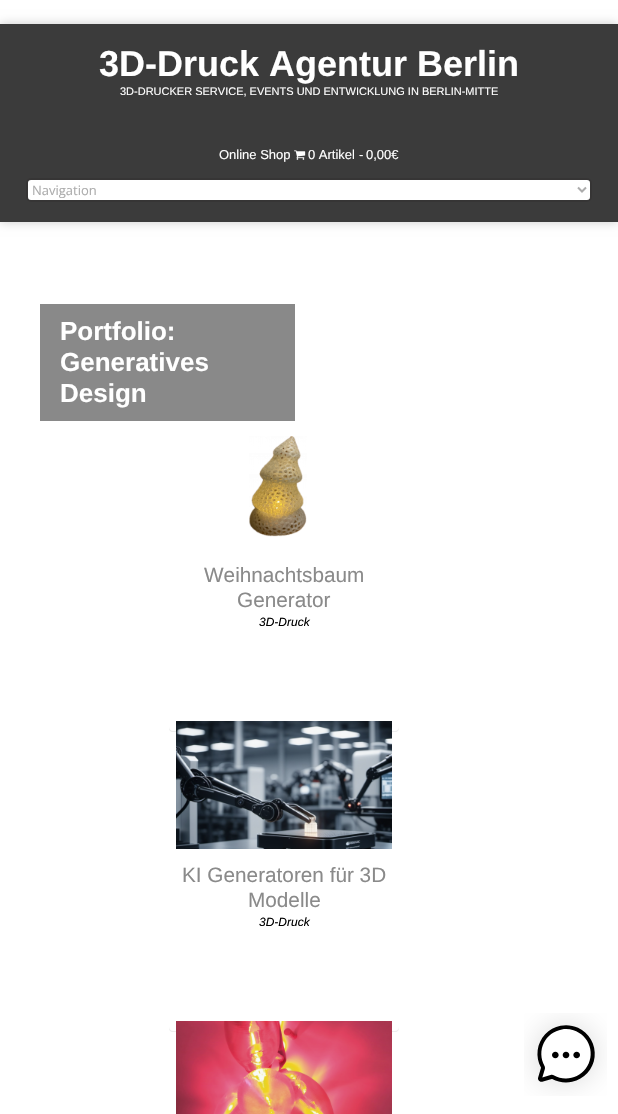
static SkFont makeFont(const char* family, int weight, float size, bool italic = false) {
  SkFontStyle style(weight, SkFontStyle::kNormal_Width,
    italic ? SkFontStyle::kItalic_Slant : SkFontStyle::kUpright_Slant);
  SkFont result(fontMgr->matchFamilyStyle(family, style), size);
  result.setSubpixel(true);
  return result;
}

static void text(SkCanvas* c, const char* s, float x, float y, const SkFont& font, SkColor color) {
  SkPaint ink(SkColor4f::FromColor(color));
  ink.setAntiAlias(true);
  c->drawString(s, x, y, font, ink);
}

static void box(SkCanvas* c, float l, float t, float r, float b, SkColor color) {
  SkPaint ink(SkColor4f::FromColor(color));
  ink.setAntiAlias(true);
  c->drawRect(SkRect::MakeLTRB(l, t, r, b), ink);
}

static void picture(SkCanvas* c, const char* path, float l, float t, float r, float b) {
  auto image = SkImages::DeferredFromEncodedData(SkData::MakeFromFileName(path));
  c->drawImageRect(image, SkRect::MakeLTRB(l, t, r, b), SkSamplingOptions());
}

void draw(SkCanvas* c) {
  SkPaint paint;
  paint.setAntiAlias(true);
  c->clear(0xffffffff);
  paint.setColor(0x33000000);
  paint.setMaskFilter(SkMaskFilter::MakeBlur(kNormal_SkBlurStyle, 5));
  c->drawRect(SkRect::MakeLTRB(0, 24, 618, 222), paint);
  paint.setMaskFilter(nullptr);
  box(c, 0, 24, 618, 222, 0xff3b3b3b);
  SkFont face1 = makeFont("Liberation Sans", 700, 36);
  text(c, "3D-Druck Agentur Berlin", 99, 76, face1, 0xffffffff);
  SkFont face2 = makeFont("Liberation Sans", 400, 11);
  text(c, "3D-DRUCKER SERVICE, EVENTS UND ENTWICKLUNG IN BERLIN-MITTE", 120, 95, face2, 0xffffffff);
  SkFont face3 = makeFont("Liberation Sans", 400, 13);
  text(c, "Online Shop", 219, 159, face3, 0xffffffff);
  picture(c, "img_01.png", 294, 150, 306, 160);
  text(c, "0 Artikel", 308, 159, face3, 0xffffffff);
  text(c, "-", 359, 159, face3, 0xffffffff);
  text(c, "0,00€", 366, 159, face3, 0xffffffff);
  paint.setColor(0xffffffff);
  c->drawRoundRect(SkRect::MakeLTRB(27, 179, 591, 201), 4, 4, paint);
  paint.setStyle(SkPaint::kStroke_Style);
  paint.setStrokeWidth(2);
  paint.setColor(0xff363535);
  c->drawRoundRect(SkRect::MakeLTRB(27, 179, 591, 201), 4, 4, paint);
  paint.setColor(0xffacacac);
  c->drawPath(SkPathBuilder().moveTo(578, 187.5f).lineTo(582, 191.5f).lineTo(586, 187.5f).detach(), paint);
  SkFont face4 = makeFont("Open Sans", 400, 13);
  text(c, "Navigation", 32, 195, face4, 0xffacacac);
  box(c, 40, 304, 295, 421, 0xff898989);
  SkFont face5 = makeFont("Liberation Sans", 700, 26);
  text(c, "Portfolio:", 60, 340, face5, 0xffffffff);
  text(c, "Generatives", 60, 371, face5, 0xffffffff);
  text(c, "Design", 60, 402, face5, 0xffffffff);
  picture(c, "img_02.png", 249, 436, 307, 537);
  paint.setStyle(SkPaint::kFill_Style);
  paint.setColor(0xffededed);
  c->drawPath(SkPathBuilder().moveTo(169, 727).cubicTo(169, 730, 170, 732, 173, 732).lineTo(395, 732).cubicTo(398, 732, 399, 730, 399, 727).cubicTo(399, 729, 397, 731, 395, 731).lineTo(173, 731).cubicTo(171, 731, 169, 729, 169, 727).close().detach(), paint);
  SkFont face6 = makeFont("Liberation Sans", 400, 20.75f);
  text(c, "Weihnachtsbaum", 204, 582, face6, 0xff8a8a8a);
  text(c, "Generator", 237, 607, face6, 0xff8a8a8a);
  SkFont face7 = makeFont("Liberation Sans", 400, 12, true);
  text(c, "3D-Druck", 259, 626, face7, 0xff000000);
  picture(c, "img_03.png", 176, 721, 392, 849);
  c->drawPath(SkPathBuilder().moveTo(169, 1027).cubicTo(169, 1030, 170, 1032, 173, 1032).lineTo(395, 1032).cubicTo(398, 1032, 399, 1030, 399, 1027).cubicTo(399, 1029, 397, 1031, 395, 1031).lineTo(173, 1031).cubicTo(171, 1031, 169, 1029, 169, 1027).close().detach(), paint);
  text(c, "KI Generatoren für 3D", 182, 882, face6, 0xff8a8a8a);
  text(c, "Modelle", 248, 907, face6, 0xff8a8a8a);
  text(c, "3D-Druck", 259, 926, face7, 0xff000000);
  picture(c, "img_04.png", 176, 1021, 392, 1114);
  picture(c, "img_05.png", 524, 1013, 607, 1096);
}
